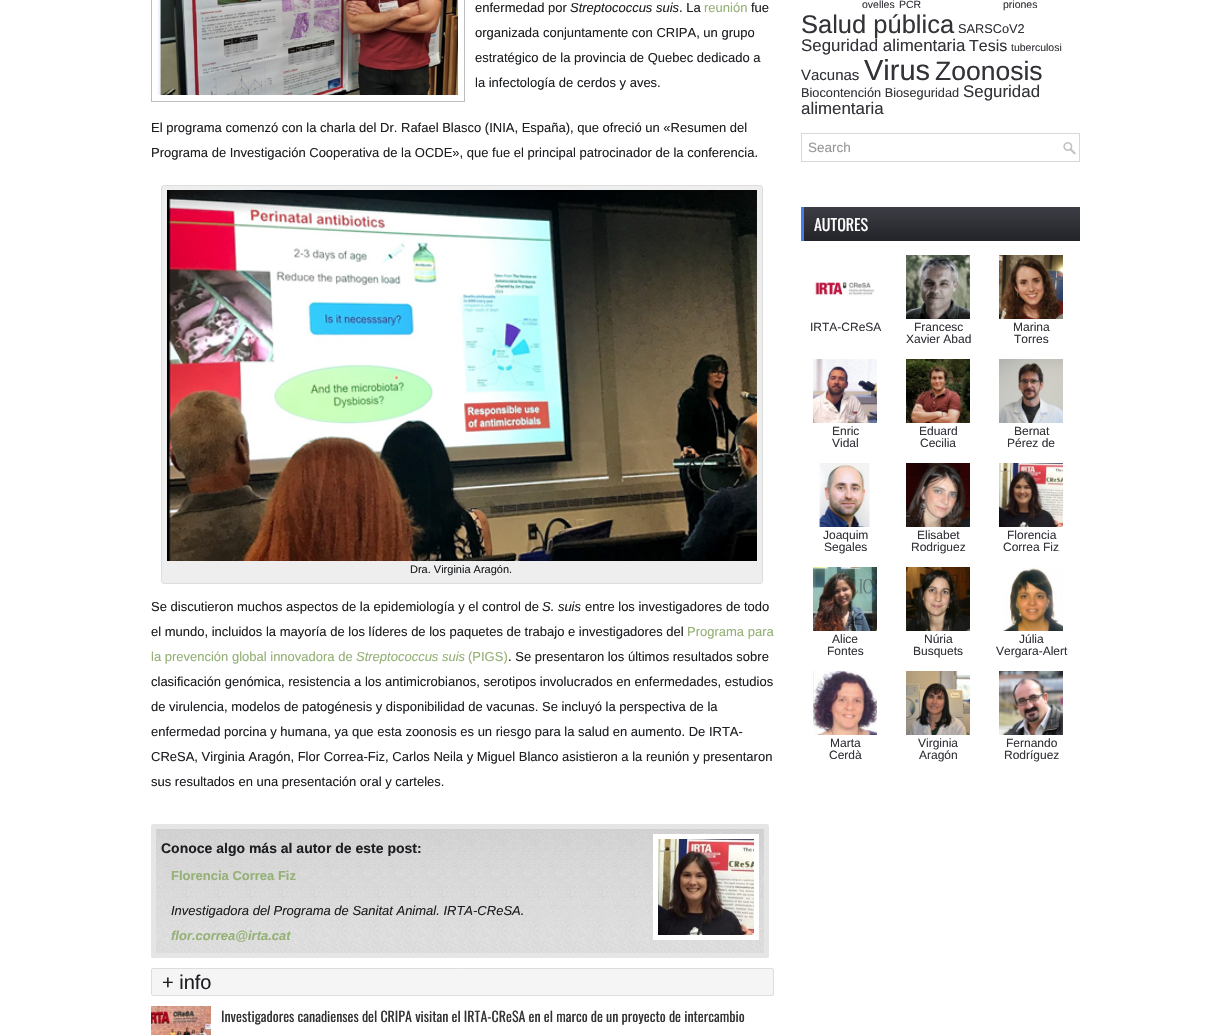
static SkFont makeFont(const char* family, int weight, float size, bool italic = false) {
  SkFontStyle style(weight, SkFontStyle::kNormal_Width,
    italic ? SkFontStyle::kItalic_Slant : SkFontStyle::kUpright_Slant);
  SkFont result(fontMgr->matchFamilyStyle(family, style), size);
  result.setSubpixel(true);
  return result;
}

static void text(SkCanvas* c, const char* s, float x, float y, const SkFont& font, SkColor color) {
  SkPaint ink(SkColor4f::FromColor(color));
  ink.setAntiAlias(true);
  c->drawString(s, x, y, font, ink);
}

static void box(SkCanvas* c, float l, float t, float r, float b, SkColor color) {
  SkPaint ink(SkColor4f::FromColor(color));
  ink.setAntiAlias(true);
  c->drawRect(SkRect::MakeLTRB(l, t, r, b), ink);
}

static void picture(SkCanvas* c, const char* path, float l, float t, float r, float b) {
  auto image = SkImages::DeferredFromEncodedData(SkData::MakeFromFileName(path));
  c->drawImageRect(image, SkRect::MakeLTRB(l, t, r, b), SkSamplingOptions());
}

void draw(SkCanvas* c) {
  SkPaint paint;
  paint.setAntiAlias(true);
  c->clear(0xffffffff);
  paint.setStyle(SkPaint::kStroke_Style);
  paint.setStrokeWidth(1);
  paint.setColor(0xffbdbdbd);
  c->drawRect(SkRect::MakeLTRB(151.5f, -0.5f, 464.5f, 101.5f), paint);
  picture(c, "img_01.png", 158, 0, 458, 95);
  SkFont face1 = makeFont("Liberation Sans", 400, 13);
  text(c, "enfermedad por", 475, 12, face1, 0xff1c1e21);
  SkFont face2 = makeFont("Liberation Sans", 400, 13, true);
  text(c, "Streptococcus suis", 570, 12, face2, 0xff1c1e21);
  text(c, ". La", 679, 12, face1, 0xff1c1e21);
  text(c, "reunión", 704, 12, face1, 0xff95b176);
  text(c, "fue", 751, 12, face1, 0xff1c1e21);
  text(c, "organizada conjuntamente con CRIPA, un grupo", 475, 37, face1, 0xff1c1e21);
  text(c, "estratégico de la provincia de Quebec dedicado a", 475, 62, face1, 0xff1c1e21);
  text(c, "la infectología de cerdos y aves.", 475, 87, face1, 0xff1c1e21);
  text(c, "El programa comenzó con la charla del Dr. Rafael Blasco (INIA, España), que ofreció un «Resumen del", 151, 132, face1, 0xff1c1e21);
  text(c, "Programa de Investigación Cooperativa de la OCDE», que fue el principal patrocinador de la conferencia.", 151, 157, face1, 0xff1c1e21);
  paint.setStyle(SkPaint::kFill_Style);
  paint.setColor(0xffeeeeee);
  c->drawRoundRect(SkRect::MakeLTRB(161.5f, 185.5f, 762.5f, 583.5f), 2.5f, 2.5f, paint);
  paint.setStyle(SkPaint::kStroke_Style);
  paint.setColor(0xffdddddd);
  c->drawRoundRect(SkRect::MakeLTRB(161.5f, 185.5f, 762.5f, 583.5f), 2.5f, 2.5f, paint);
  picture(c, "img_02.png", 167, 190, 757, 561);
  SkFont face3 = makeFont("Liberation Sans", 400, 11);
  text(c, "Dra. Virginia Aragón.", 410, 573, face3, 0xff1c1e21);
  text(c, "Se discutieron muchos aspectos de la epidemiología y el control de", 151, 611, face1, 0xff1c1e21);
  text(c, "S. suis", 542, 611, face2, 0xff1c1e21);
  text(c, "entre los investigadores de todo", 585, 611, face1, 0xff1c1e21);
  text(c, "el mundo, incluidos la mayoría de los líderes de los paquetes de trabajo e investigadores del", 151, 636, face1, 0xff1c1e21);
  text(c, "Programa para", 687, 636, face1, 0xff95b176);
  text(c, "la prevención global innovadora de", 151, 661, face1, 0xff95b176);
  text(c, "Streptococcus suis", 356, 661, face2, 0xff95b176);
  text(c, "(PIGS)", 468, 661, face1, 0xff95b176);
  text(c, ". Se presentaron los últimos resultados sobre", 508, 661, face1, 0xff1c1e21);
  text(c, "clasificación genómica, resistencia a los antimicrobianos, serotipos involucrados en enfermedades, estudios", 151, 686, face1, 0xff1c1e21);
  text(c, "de virulencia, modelos de patogénesis y disponibilidad de vacunas. Se incluyó la perspectiva de la", 151, 711, face1, 0xff1c1e21);
  text(c, "enfermedad porcina y humana, ya que esta zoonosis es un riesgo para la salud en aumento. De IRTA-", 151, 736, face1, 0xff1c1e21);
  text(c, "CReSA, Virginia Aragón, Flor Correa-Fiz, Carlos Neila y Miguel Blanco asistieron a la reunión y presentaron", 151, 761, face1, 0xff1c1e21);
  text(c, "sus resultados en una presentación oral y carteles.", 151, 786, face1, 0xff1c1e21);
  picture(c, "img_03.png", 151, 829, 769, 958);
  paint.setStrokeWidth(5);
  paint.setColor(0xffe5e5e5);
  c->drawRoundRect(SkRect::MakeLTRB(153.5f, 826.5f, 766.5f, 955.5f), 0.5f, 0.5f, paint);
  SkFont face4 = makeFont("Liberation Sans", 700, 14);
  text(c, "Conoce algo más al autor de este post:", 161, 853, face4, 0xff1c1e21);
  paint.setColor(0xffffffff);
  c->drawRect(SkRect::MakeLTRB(655.5f, 836.5f, 756.5f, 937.5f), paint);
  picture(c, "img_04.png", 658, 839, 754, 935);
  SkFont face5 = makeFont("Liberation Sans", 700, 13);
  text(c, "Florencia Correa Fiz", 171, 880, face5, 0xff95b176);
  text(c, "Investigadora del Programa de Sanitat Animal. IRTA-CReSA.", 171, 915, face2, 0xff1c1e21);
  SkFont face6 = makeFont("Liberation Sans", 700, 13, true);
  text(c, "flor.correa@irta.cat", 171, 940, face6, 0xff95b176);
  paint.setStyle(SkPaint::kFill_Style);
  paint.setColor(0xfff5f5f5);
  c->drawRoundRect(SkRect::MakeLTRB(151.5f, 968.5f, 773.5f, 995.5f), 1.5f, 1.5f, paint);
  paint.setStyle(SkPaint::kStroke_Style);
  paint.setStrokeWidth(1);
  paint.setColor(0xffdddddd);
  c->drawRoundRect(SkRect::MakeLTRB(151.5f, 968.5f, 773.5f, 995.5f), 1.5f, 1.5f, paint);
  SkFont face7 = makeFont("Liberation Sans", 400, 20);
  text(c, "+ info", 162, 989, face7, 0xff1c1e21);
  picture(c, "img_05.png", 151, 1006, 211, 1035);
  SkFont face8 = makeFont("Oswald", 400, 14);
  text(c, "Investigadores canadienses del CRIPA visitan el IRTA-CReSA en el marco de un proyecto de intercambio", 221, 1022, face8, 0xff333333);
  SkFont face9 = makeFont("Liberation Sans", 400, 10.5f);
  text(c, "ovelles", 862, 8, face9, 0xff323339);
  text(c, "PCR", 899, 8, face9, 0xff323339);
  text(c, "priones", 1003, 8, face9, 0xff323339);
  SkFont face10 = makeFont("Liberation Sans", 400, 25.5f);
  text(c, "Salud pública", 801, 33, face10, 0xff323339);
  SkFont face11 = makeFont("Liberation Sans", 400, 12.75f);
  text(c, "SARSCoV2", 958, 33, face11, 0xff323339);
  SkFont face12 = makeFont("Liberation Sans", 400, 16.9f);
  text(c, "Seguridad alimentaria", 801, 51, face12, 0xff323339);
  SkFont face13 = makeFont("Liberation Sans", 400, 16);
  text(c, "Tesis", 969, 51, face13, 0xff323339);
  text(c, "tuberculosi", 1011, 51, face9, 0xff323339);
  SkFont face14 = makeFont("Liberation Sans", 400, 15);
  text(c, "Vacunas", 801, 80, face14, 0xff323339);
  SkFont face15 = makeFont("Liberation Sans", 400, 29);
  text(c, "Virus", 864, 80, face15, 0xff323339);
  SkFont face16 = makeFont("Liberation Sans", 400, 26.5f);
  text(c, "Zoonosis", 935, 80, face16, 0xff323339);
  text(c, "Biocontención Bioseguridad", 801, 97, face11, 0xff323339);
  text(c, "Seguridad", 963, 97, face12, 0xff323339);
  text(c, "alimentaria", 801, 114, face12, 0xff323339);
  picture(c, "img_06.png", 1063, 142, 1076, 155);
  paint.setColor(0xffd8d8d8);
  c->drawRect(SkRect::MakeLTRB(801.5f, 133.5f, 1079.5f, 161.5f), paint);
  SkFont face17 = makeFont("Liberation Sans", 400, 13.5f);
  text(c, "Search", 808, 152, face17, 0xff979797);
  picture(c, "img_07.png", 804, 207, 1080, 241);
  box(c, 801, 207, 804, 241, 0xff467bec);
  SkFont face18 = makeFont("Oswald", 400, 16);
  text(c, "AUTORES", 814, 231, face18, 0xffffffff);
  picture(c, "img_08.png", 813, 282, 875, 296);
  SkFont face19 = makeFont("Liberation Sans", 400, 12);
  text(c, "IRTA-CReSA", 810, 331, face19, 0xff323339);
  picture(c, "img_09.png", 906, 255, 970, 319);
  text(c, "Francesc", 914, 331, face19, 0xff323339);
  text(c, "Xavier Abad", 906, 343, face19, 0xff323339);
  picture(c, "img_10.png", 999, 255, 1063, 319);
  text(c, "Marina", 1013, 331, face19, 0xff323339);
  text(c, "Torres", 1014, 343, face19, 0xff323339);
  picture(c, "img_11.png", 813, 359, 877, 423);
  text(c, "Enric", 832, 435, face19, 0xff323339);
  text(c, "Vidal", 832, 447, face19, 0xff323339);
  picture(c, "img_12.png", 906, 359, 970, 423);
  text(c, "Eduard", 919, 435, face19, 0xff323339);
  text(c, "Cecilia", 920, 447, face19, 0xff323339);
  picture(c, "img_13.png", 999, 359, 1063, 423);
  text(c, "Bernat", 1014, 435, face19, 0xff323339);
  text(c, "Pérez de", 1007, 447, face19, 0xff323339);
  picture(c, "img_14.png", 819, 463, 870, 527);
  text(c, "Joaquim", 823, 539, face19, 0xff323339);
  text(c, "Segales", 824, 551, face19, 0xff323339);
  picture(c, "img_15.png", 906, 463, 970, 527);
  text(c, "Elisabet", 917, 539, face19, 0xff323339);
  text(c, "Rodriguez", 911, 551, face19, 0xff323339);
  picture(c, "img_16.png", 999, 463, 1063, 527);
  text(c, "Florencia", 1007, 539, face19, 0xff323339);
  text(c, "Correa Fiz", 1003, 551, face19, 0xff323339);
  picture(c, "img_17.png", 813, 567, 877, 631);
  text(c, "Alice", 832, 643, face19, 0xff323339);
  text(c, "Fontes", 827, 655, face19, 0xff323339);
  picture(c, "img_18.png", 906, 567, 970, 631);
  text(c, "Núria", 924, 643, face19, 0xff323339);
  text(c, "Busquets", 913, 655, face19, 0xff323339);
  picture(c, "img_19.png", 1002, 567, 1063, 631);
  text(c, "Júlia", 1019, 643, face19, 0xff323339);
  text(c, "Vergara-Alert", 996, 655, face19, 0xff323339);
  picture(c, "img_20.png", 813, 671, 877, 735);
  text(c, "Marta", 830, 747, face19, 0xff323339);
  text(c, "Cerdà", 829, 759, face19, 0xff323339);
  picture(c, "img_21.png", 906, 671, 970, 735);
  text(c, "Virginia", 918, 747, face19, 0xff323339);
  text(c, "Aragón", 919, 759, face19, 0xff323339);
  picture(c, "img_22.png", 999, 671, 1063, 735);
  text(c, "Fernando", 1006, 747, face19, 0xff323339);
  text(c, "Rodríguez", 1004, 759, face19, 0xff323339);
}
